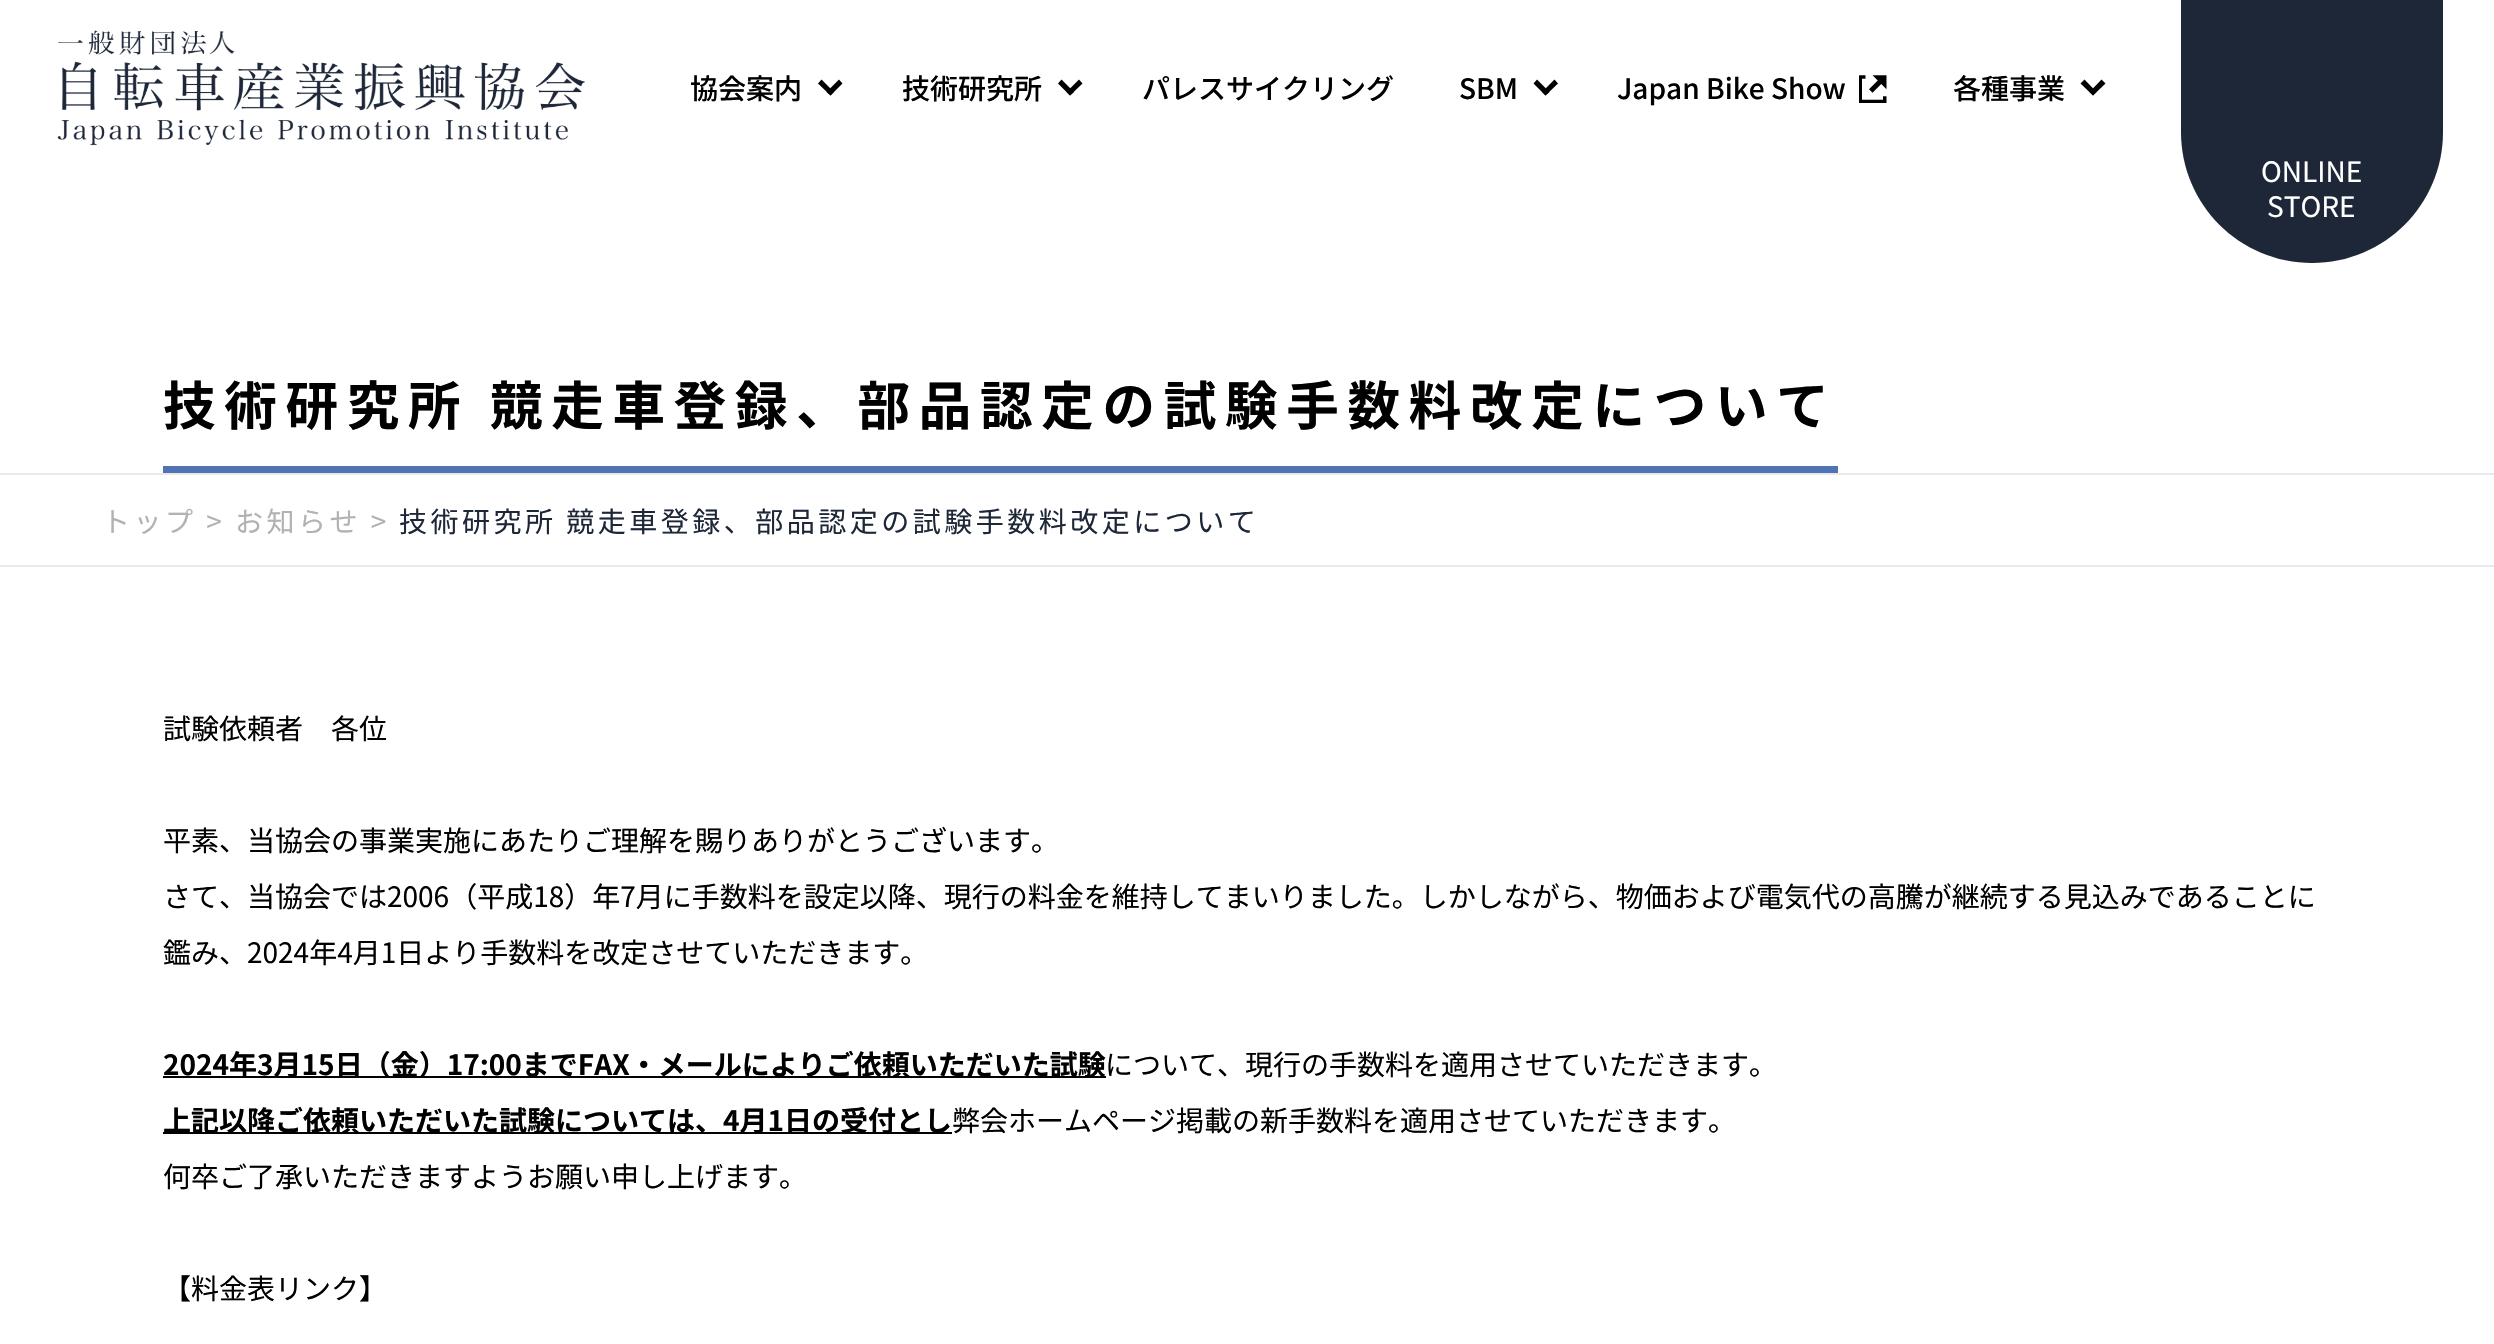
static SkFont makeFont(const char* family, int weight, float size, bool italic = false) {
  SkFontStyle style(weight, SkFontStyle::kNormal_Width,
    italic ? SkFontStyle::kItalic_Slant : SkFontStyle::kUpright_Slant);
  SkFont result(fontMgr->matchFamilyStyle(family, style), size);
  result.setSubpixel(true);
  return result;
}

static void text(SkCanvas* c, const char* s, float x, float y, const SkFont& font, SkColor color) {
  SkPaint ink(SkColor4f::FromColor(color));
  ink.setAntiAlias(true);
  c->drawString(s, x, y, font, ink);
}

static void spacedText(SkCanvas* c, const char* s, float x, float y, const SkFont& font, const SkPaint& ink, float letter, float word) {
  std::vector<SkGlyphID> glyphs(font.countText(s, strlen(s), SkTextEncoding::kUTF8));
  std::vector<float> xs(glyphs.size());
  font.textToGlyphs(s, strlen(s), SkTextEncoding::kUTF8, glyphs);
  font.getXPos(glyphs, xs, x);
  float extra = 0;
  for (size_t i = 0; i < glyphs.size(); i++) {
    xs[i] += extra;
    extra += letter + word * (glyphs[i] == font.unicharToGlyph(' '));
  }
  c->drawTextBlob(SkTextBlob::MakeFromPosHGlyphs(glyphs, xs, y, font), 0, 0, ink);
}

static void box(SkCanvas* c, float l, float t, float r, float b, SkColor color) {
  SkPaint ink(SkColor4f::FromColor(color));
  ink.setAntiAlias(true);
  c->drawRect(SkRect::MakeLTRB(l, t, r, b), ink);
}

static void picture(SkCanvas* c, const char* path, float l, float t, float r, float b) {
  auto image = SkImages::DeferredFromEncodedData(SkData::MakeFromFileName(path));
  c->drawImageRect(image, SkRect::MakeLTRB(l, t, r, b), SkSamplingOptions());
}

void draw(SkCanvas* c) {
  SkPaint paint;
  paint.setAntiAlias(true);
  c->clear(0xffffffff);
  picture(c, "img_01.png", 57, 30, 585, 146);
  SkFont face1 = makeFont("Noto Sans JP", 500, 28);
  text(c, "協会案内", 690, 99, face1, 0xff000000);
  paint.setColor(0xff000000);
  c->drawPath(SkPathBuilder().moveTo(842.5f, 83.5f).lineTo(830.5f, 95.5f).lineTo(826.5f, 92).lineTo(839, 79.5f).close().detach(), paint);
  c->drawPath(SkPathBuilder().moveTo(834, 92).lineTo(830.5f, 95.5f).lineTo(818, 83.5f).lineTo(821.5f, 79.5f).close().detach(), paint);
  text(c, "技術研究所", 902, 99, face1, 0xff000000);
  c->drawPath(SkPathBuilder().moveTo(1082.5f, 83.5f).lineTo(1070, 95.5f).lineTo(1066.5f, 92).lineTo(1079, 79.5f).close().detach(), paint);
  c->drawPath(SkPathBuilder().moveTo(1074, 92).lineTo(1070, 95.5f).lineTo(1058, 83.5f).lineTo(1061.5f, 79.5f).close().detach(), paint);
  text(c, "パレスサイクリング", 1142, 99, face1, 0xff000000);
  text(c, "SBM", 1459, 99, face1, 0xff000000);
  c->drawPath(SkPathBuilder().moveTo(1558, 83.5f).lineTo(1545.5f, 95.5f).lineTo(1542, 92).lineTo(1554.5f, 79.5f).close().detach(), paint);
  c->drawPath(SkPathBuilder().moveTo(1549.5f, 92).lineTo(1545.5f, 95.5f).lineTo(1533.5f, 83.5f).lineTo(1537, 79.5f).close().detach(), paint);
  text(c, "Japan Bike Show", 1617, 99, face1, 0xff000000);
  picture(c, "img_02.png", 1859, 75, 1887, 103);
  text(c, "各種事業", 1953, 99, face1, 0xff000000);
  c->drawPath(SkPathBuilder().moveTo(2105.5f, 83.5f).lineTo(2093, 95.5f).lineTo(2089.5f, 92).lineTo(2101.5f, 79.5f).close().detach(), paint);
  c->drawPath(SkPathBuilder().moveTo(2096.5f, 92).lineTo(2093, 95.5f).lineTo(2080.5f, 83.5f).lineTo(2084.5f, 79.5f).close().detach(), paint);
  paint.setColor(0xff1d2738);
  c->drawPath(SkPathBuilder().moveTo(2181, 0).lineTo(2443, 0).lineTo(2443, 132).cubicTo(2443, 204.5f, 2384.5f, 263, 2312, 263).cubicTo(2239.5f, 263, 2181, 204.5f, 2181, 132).close().detach(), paint);
  SkFont face2 = makeFont("Noto Sans JP", 400, 28);
  text(c, "ONLINE", 2261, 182, face2, 0xffffffff);
  text(c, "STORE", 2267, 217, face2, 0xffffffff);
  SkFont face3 = makeFont("Noto Sans JP", 700, 52.5f);
  paint.setColor(0xff000000);
  spacedText(c, "技術研究所 競走車登録、部品認定の試験手数料改定について", 163, 425, face3, paint, 8.75f, 0);
  box(c, 163, 466, 1838, 473, 0xff5074b3);
  box(c, 0, 473, 2494, 475, 0xffe7e9ee);
  box(c, 0, 565, 2494, 567, 0xffe7e9ee);
  paint.setColor(0xffb2b2b2);
  spacedText(c, "トップ > お知らせ >", 102, 532, face2, paint, 3.5f, 0);
  paint.setColor(0xff1d2738);
  spacedText(c, "技術研究所 競走車登録、部品認定の試験手数料改定について", 399, 532, face2, paint, 3.5f, 0);
  text(c, "試験依頼者　各位", 163, 739, face2, 0xff000000);
  text(c, "平素、当協会の事業実施にあたりご理解を賜りありがとうございます。", 163, 851, face2, 0xff000000);
  text(c, "さて、当協会では2006（平成18）年7月に手数料を設定以降、現行の料金を維持してまいりました。しかしながら、物価および電気代の高騰が継続する見込みであることに", 163, 907, face2, 0xff000000);
  text(c, "鑑み、2024年4月1日より手数料を改定させていただきます。", 163, 963, face2, 0xff000000);
  box(c, 163, 1076, 1106, 1078, 0xff000000);
  SkFont face4 = makeFont("Noto Sans JP", 700, 28);
  text(c, "2024年3月15日（金）17:00までFAX・メールによりご依頼いただいた試験", 163, 1075, face4, 0xff000000);
  text(c, "について、現行の手数料を適用させていただきます。", 1105, 1075, face2, 0xff000000);
  box(c, 163, 1132, 952, 1134, 0xff000000);
  text(c, "上記以降ご依頼いただいた試験については、4月1日の受付とし", 163, 1131, face4, 0xff000000);
  text(c, "弊会ホームページ掲載の新手数料を適用させていただきます。", 952, 1131, face2, 0xff000000);
  text(c, "何卒ご了承いただきますようお願い申し上げます。", 163, 1187, face2, 0xff000000);
  text(c, "【料金表リンク】", 163, 1299, face2, 0xff000000);
}
